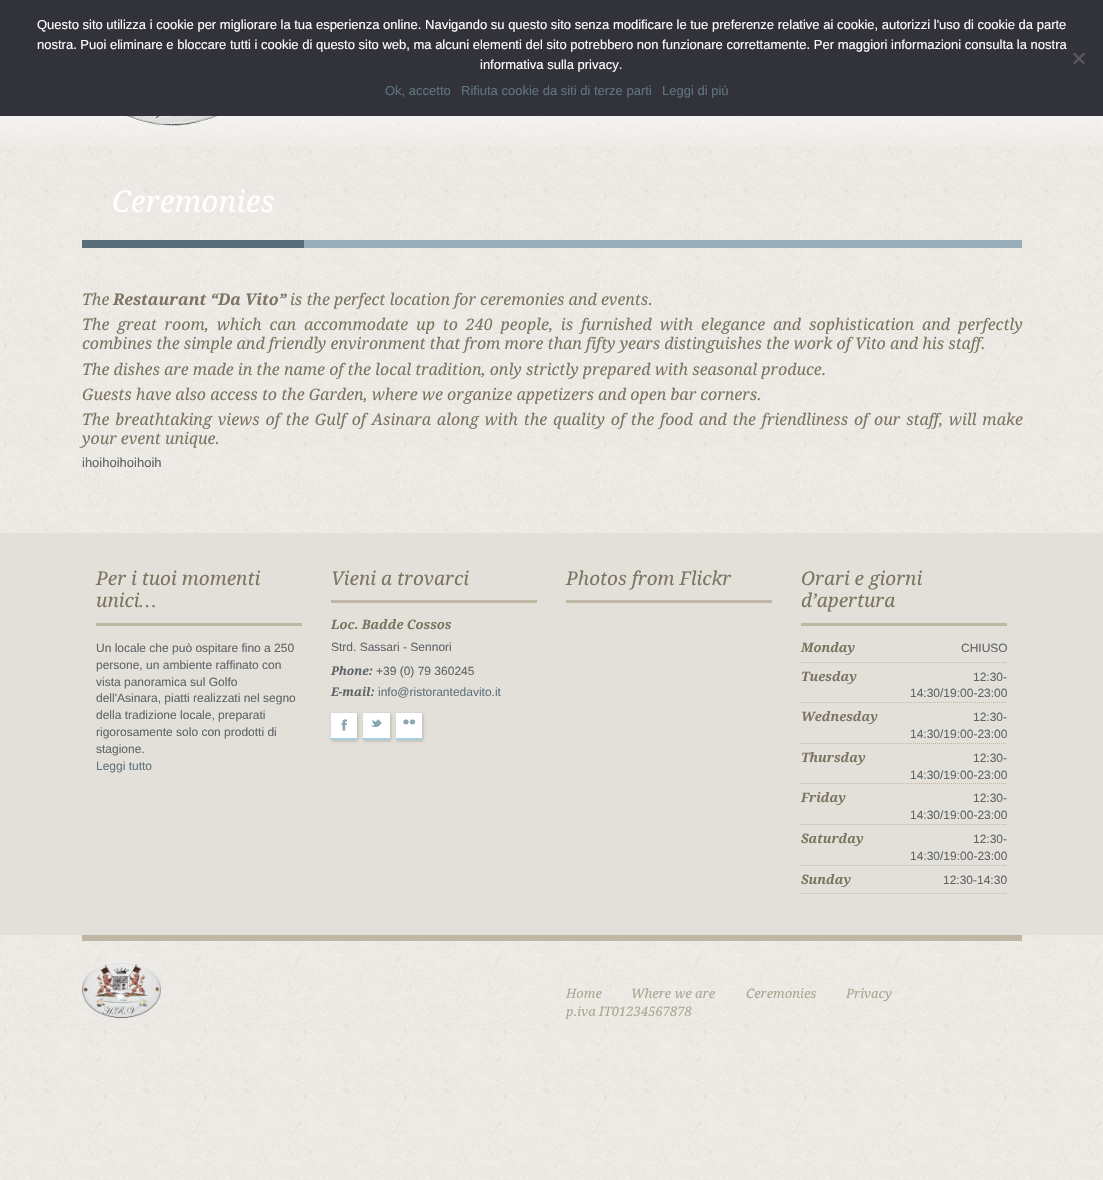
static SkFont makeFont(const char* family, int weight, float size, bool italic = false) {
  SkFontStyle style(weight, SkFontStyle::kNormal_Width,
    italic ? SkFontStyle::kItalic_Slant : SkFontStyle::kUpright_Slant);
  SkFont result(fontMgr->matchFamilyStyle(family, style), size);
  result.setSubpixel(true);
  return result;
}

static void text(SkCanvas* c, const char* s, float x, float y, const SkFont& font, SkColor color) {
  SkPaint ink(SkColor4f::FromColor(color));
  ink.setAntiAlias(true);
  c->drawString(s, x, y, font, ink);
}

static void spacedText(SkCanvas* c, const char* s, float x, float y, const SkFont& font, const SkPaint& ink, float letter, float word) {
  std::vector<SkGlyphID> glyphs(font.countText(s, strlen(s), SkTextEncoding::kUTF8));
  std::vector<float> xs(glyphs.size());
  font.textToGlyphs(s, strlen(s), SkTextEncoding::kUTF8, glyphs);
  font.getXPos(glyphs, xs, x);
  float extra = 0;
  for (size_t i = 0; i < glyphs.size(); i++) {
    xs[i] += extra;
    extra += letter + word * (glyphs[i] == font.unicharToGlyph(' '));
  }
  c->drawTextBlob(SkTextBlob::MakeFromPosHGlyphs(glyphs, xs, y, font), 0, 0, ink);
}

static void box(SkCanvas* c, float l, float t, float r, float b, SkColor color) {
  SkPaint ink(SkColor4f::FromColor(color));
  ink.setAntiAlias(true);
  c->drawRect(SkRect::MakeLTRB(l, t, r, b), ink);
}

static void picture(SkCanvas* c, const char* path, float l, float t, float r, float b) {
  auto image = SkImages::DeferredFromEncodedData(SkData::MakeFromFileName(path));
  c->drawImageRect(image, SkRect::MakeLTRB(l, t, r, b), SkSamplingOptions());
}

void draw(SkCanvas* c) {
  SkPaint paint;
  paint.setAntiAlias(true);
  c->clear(0xffffffff);
  picture(c, "img_01.png", 0, 116, 1103, 1180);
  box(c, 0, 0, 1103, 116, 0xff32323a);
  SkFont face1 = makeFont("Liberation Sans", 400, 13);
  text(c, "Questo sito utilizza i cookie per migliorare la tua esperienza online. Navigando su questo sito senza modificare le tue preferenze relative ai cookie, autorizzi l'uso di cookie da parte", 37, 29, face1, 0xffffffff);
  text(c, "nostra. Puoi eliminare e bloccare tutti i cookie di questo sito web, ma alcuni elementi del sito potrebbero non funzionare correttamente. Per maggiori informazioni consulta la nostra", 37, 49, face1, 0xffffffff);
  text(c, "informativa sulla privacy.", 480, 69, face1, 0xffffffff);
  paint.setColor(0xff59595d);
  c->drawPath(SkPathBuilder().moveTo(1083.5f, 52.5f).lineTo(1085, 54).lineTo(1074.5f, 64.5f).lineTo(1073, 63).close().detach(), paint);
  c->drawPath(SkPathBuilder().moveTo(1073, 54).lineTo(1074.5f, 52.5f).lineTo(1085, 63).lineTo(1083.5f, 64.5f).close().detach(), paint);
  text(c, "Ok, accetto", 385, 95, face1, 0xff5f757e);
  text(c, "Rifiuta cookie da siti di terze parti", 461, 95, face1, 0xff5f757e);
  text(c, "Leggi di più", 662, 95, face1, 0xff5f757e);
  picture(c, "img_02.png", 0, 116, 1103, 146);
  picture(c, "img_03.png", 127, 116, 217, 126);
  box(c, 82, 240, 304, 248, 0xff576e78);
  SkFont face2 = makeFont("Droid Serif", 400, 30, true);
  text(c, "Ceremonies", 112, 212, face2, 0xffffffff);
  box(c, 304, 240, 1022, 248, 0xd988a5b1);
  picture(c, "img_04.png", 0, 248, 1103, 533);
  SkFont face3 = makeFont("Droid Serif", 400, 16, true);
  text(c, "The", 82, 305, face3, 0xff7b7562);
  SkFont face4 = makeFont("Droid Serif", 700, 16, true);
  text(c, "Restaurant “Da Vito”", 113, 305, face4, 0xff7b7562);
  text(c, "is the perfect location for ceremonies and events.", 290, 305, face3, 0xff7b7562);
  paint.setColor(0xff7b7562);
  spacedText(c, "The great room, which can accommodate up to 240 people, is furnished with elegance and sophistication and perfectly", 82, 330, face3, paint, 0, 3.75f);
  text(c, "combines the simple and friendly environment that from more than fifty years distinguishes the work of Vito and his staff.", 82, 349, face3, 0xff7b7562);
  text(c, "The dishes are made in the name of the local tradition, only strictly prepared with seasonal produce.", 82, 375, face3, 0xff7b7562);
  text(c, "Guests have also access to the Garden, where we organize appetizers and open bar corners.", 82, 400, face3, 0xff7b7562);
  spacedText(c, "The breathtaking views of the Gulf of Asinara along with the quality of the food and the friendliness of our staff, will make", 82, 425, face3, paint, 0, 1.7f);
  text(c, "your event unique.", 82, 444, face3, 0xff7b7562);
  text(c, "ihoihoihoihoih", 82, 467, face1, 0xff5f6567);
  box(c, 0, 533, 1103, 935, 0xffe3e0d9);
  box(c, 96, 623, 302, 626, 0xffbdb7a4);
  SkFont face5 = makeFont("Droid Serif", 400, 19, true);
  text(c, "Per i tuoi momenti", 96, 585, face5, 0xff7b7562);
  text(c, "unici", 96, 607, face5, 0xff7b7562);
  SkFont face6 = makeFont("Liberation Serif", 400, 19, true);
  text(c, "…", 139, 607, face6, 0xff7b7562);
  SkFont face7 = makeFont("Liberation Sans", 400, 12);
  text(c, "Un locale che può ospitare fino a 250", 96, 652, face7, 0xff5f6567);
  text(c, "persone, un ambiente raffinato con", 96, 669, face7, 0xff5f6567);
  text(c, "vista panoramica sul Golfo", 96, 686, face7, 0xff5f6567);
  text(c, "dell'Asinara, piatti realizzati nel segno", 96, 702, face7, 0xff5f6567);
  text(c, "della tradizione locale, preparati", 96, 719, face7, 0xff5f6567);
  text(c, "rigorosamente solo con prodotti di", 96, 736, face7, 0xff5f6567);
  text(c, "stagione.", 96, 753, face7, 0xff5f6567);
  text(c, "Leggi tutto", 96, 770, face7, 0xff5f757e);
  box(c, 331, 600, 537, 603, 0xffbdb7a4);
  text(c, "Vieni a trovarci", 331, 585, face5, 0xff7b7562);
  SkFont face8 = makeFont("Droid Serif", 700, 13, true);
  text(c, "Loc. Badde Cossos", 331, 629, face8, 0xff7b7562);
  text(c, "Strd. Sassari - Sennori", 331, 651, face7, 0xff5f6567);
  SkFont face9 = makeFont("Droid Serif", 700, 12, true);
  text(c, "Phone:", 331, 675, face9, 0xff5f6567);
  text(c, "+39 (0) 79 360245", 376, 675, face7, 0xff5f6567);
  text(c, "E-mail:", 331, 696, face9, 0xff5f6567);
  text(c, "info@ristorantedavito.it", 378, 696, face7, 0xff5f757e);
  paint.setColor(0x33000000);
  paint.setMaskFilter(SkMaskFilter::MakeBlur(kNormal_SkBlurStyle, 1.5f));
  c->drawRect(SkRect::MakeLTRB(332, 714, 358, 741), paint);
  paint.setMaskFilter(nullptr);
  box(c, 331, 713, 357, 738, 0xffffffff);
  box(c, 331, 738, 357, 740, 0xffaacedd);
  SkFont face10 = makeFont("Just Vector", 400, 15);
  text(c, "F", 338, 730, face10, 0xff88a5b1);
  paint.setMaskFilter(SkMaskFilter::MakeBlur(kNormal_SkBlurStyle, 1.5f));
  c->drawRect(SkRect::MakeLTRB(364, 714, 391, 741), paint);
  paint.setMaskFilter(nullptr);
  box(c, 363, 713, 390, 738, 0xffffffff);
  box(c, 363, 738, 390, 740, 0xffaacedd);
  text(c, "t", 370, 730, face10, 0xff88a5b1);
  paint.setMaskFilter(SkMaskFilter::MakeBlur(kNormal_SkBlurStyle, 1.5f));
  c->drawRect(SkRect::MakeLTRB(397, 714, 423, 741), paint);
  paint.setMaskFilter(nullptr);
  box(c, 396, 713, 422, 738, 0xffffffff);
  box(c, 396, 738, 422, 740, 0xffaacedd);
  text(c, "n", 403, 730, face10, 0xff88a5b1);
  box(c, 566, 600, 772, 603, 0xffbdb7a4);
  text(c, "Photos from Flickr", 566, 585, face5, 0xff7b7562);
  box(c, 801, 623, 1007, 626, 0xffbdb7a4);
  text(c, "Orari e giorni", 801, 585, face5, 0xff7b7562);
  text(c, "d’apertura", 801, 607, face5, 0xff7b7562);
  paint.setStyle(SkPaint::kStroke_Style);
  paint.setStrokeWidth(1);
  paint.setColor(0xffbdb7a4);
  paint.setPathEffect(SkDashPathEffect::Make({{1, 1}}, 0));
  c->drawPath(SkPathBuilder().moveTo(801, 662.5f).lineTo(1007, 662.5f).detach(), paint);
  paint.setPathEffect(nullptr);
  text(c, "Monday", 801, 652, face8, 0xff7b7562);
  text(c, "CHIUSO", 961, 652, face7, 0xff5f6567);
  paint.setPathEffect(SkDashPathEffect::Make({{1, 1}}, 0));
  c->drawPath(SkPathBuilder().moveTo(801, 702.5f).lineTo(1007, 702.5f).detach(), paint);
  paint.setPathEffect(nullptr);
  text(c, "Tuesday", 801, 681, face8, 0xff7b7562);
  text(c, "12:30-", 973, 681, face7, 0xff5f6567);
  text(c, "14:30/19:00-23:00", 910, 697, face7, 0xff5f6567);
  paint.setPathEffect(SkDashPathEffect::Make({{1, 1}}, 0));
  c->drawPath(SkPathBuilder().moveTo(801, 743.5f).lineTo(1007, 743.5f).detach(), paint);
  paint.setPathEffect(nullptr);
  text(c, "Wednesday", 801, 721, face8, 0xff7b7562);
  text(c, "12:30-", 973, 721, face7, 0xff5f6567);
  text(c, "14:30/19:00-23:00", 910, 738, face7, 0xff5f6567);
  paint.setPathEffect(SkDashPathEffect::Make({{1, 1}}, 0));
  c->drawPath(SkPathBuilder().moveTo(801, 783.5f).lineTo(1007, 783.5f).detach(), paint);
  paint.setPathEffect(nullptr);
  text(c, "Thursday", 801, 762, face8, 0xff7b7562);
  text(c, "12:30-", 973, 762, face7, 0xff5f6567);
  text(c, "14:30/19:00-23:00", 910, 779, face7, 0xff5f6567);
  paint.setPathEffect(SkDashPathEffect::Make({{1, 1}}, 0));
  c->drawPath(SkPathBuilder().moveTo(801, 824.5f).lineTo(1007, 824.5f).detach(), paint);
  paint.setPathEffect(nullptr);
  text(c, "Friday", 801, 802, face8, 0xff7b7562);
  text(c, "12:30-", 973, 802, face7, 0xff5f6567);
  text(c, "14:30/19:00-23:00", 910, 819, face7, 0xff5f6567);
  paint.setPathEffect(SkDashPathEffect::Make({{1, 1}}, 0));
  c->drawPath(SkPathBuilder().moveTo(801, 865.5f).lineTo(1007, 865.5f).detach(), paint);
  paint.setPathEffect(nullptr);
  text(c, "Saturday", 801, 843, face8, 0xff7b7562);
  text(c, "12:30-", 973, 843, face7, 0xff5f6567);
  text(c, "14:30/19:00-23:00", 910, 860, face7, 0xff5f6567);
  paint.setPathEffect(SkDashPathEffect::Make({{1, 1}}, 0));
  c->drawPath(SkPathBuilder().moveTo(801, 893.5f).lineTo(1007, 893.5f).detach(), paint);
  paint.setPathEffect(nullptr);
  text(c, "Sunday", 801, 884, face8, 0xff7b7562);
  text(c, "12:30-14:30", 943, 884, face7, 0xff5f6567);
  picture(c, "img_05.png", 0, 935, 1103, 1066);
  box(c, 82, 935, 1022, 941, 0xffbdb7a4);
  picture(c, "img_06.png", 82, 961, 161, 1018);
  SkFont face11 = makeFont("Droid Serif", 400, 13, true);
  text(c, "Home", 566, 998, face11, 0xffaca693);
  text(c, "Where we are", 631, 998, face11, 0xffaca693);
  text(c, "Ceremonies", 746, 998, face11, 0xffaca693);
  text(c, "Privacy", 846, 998, face11, 0xffaca693);
  text(c, "p.iva IT01234567878", 566, 1016, face11, 0xffaca693);
}
